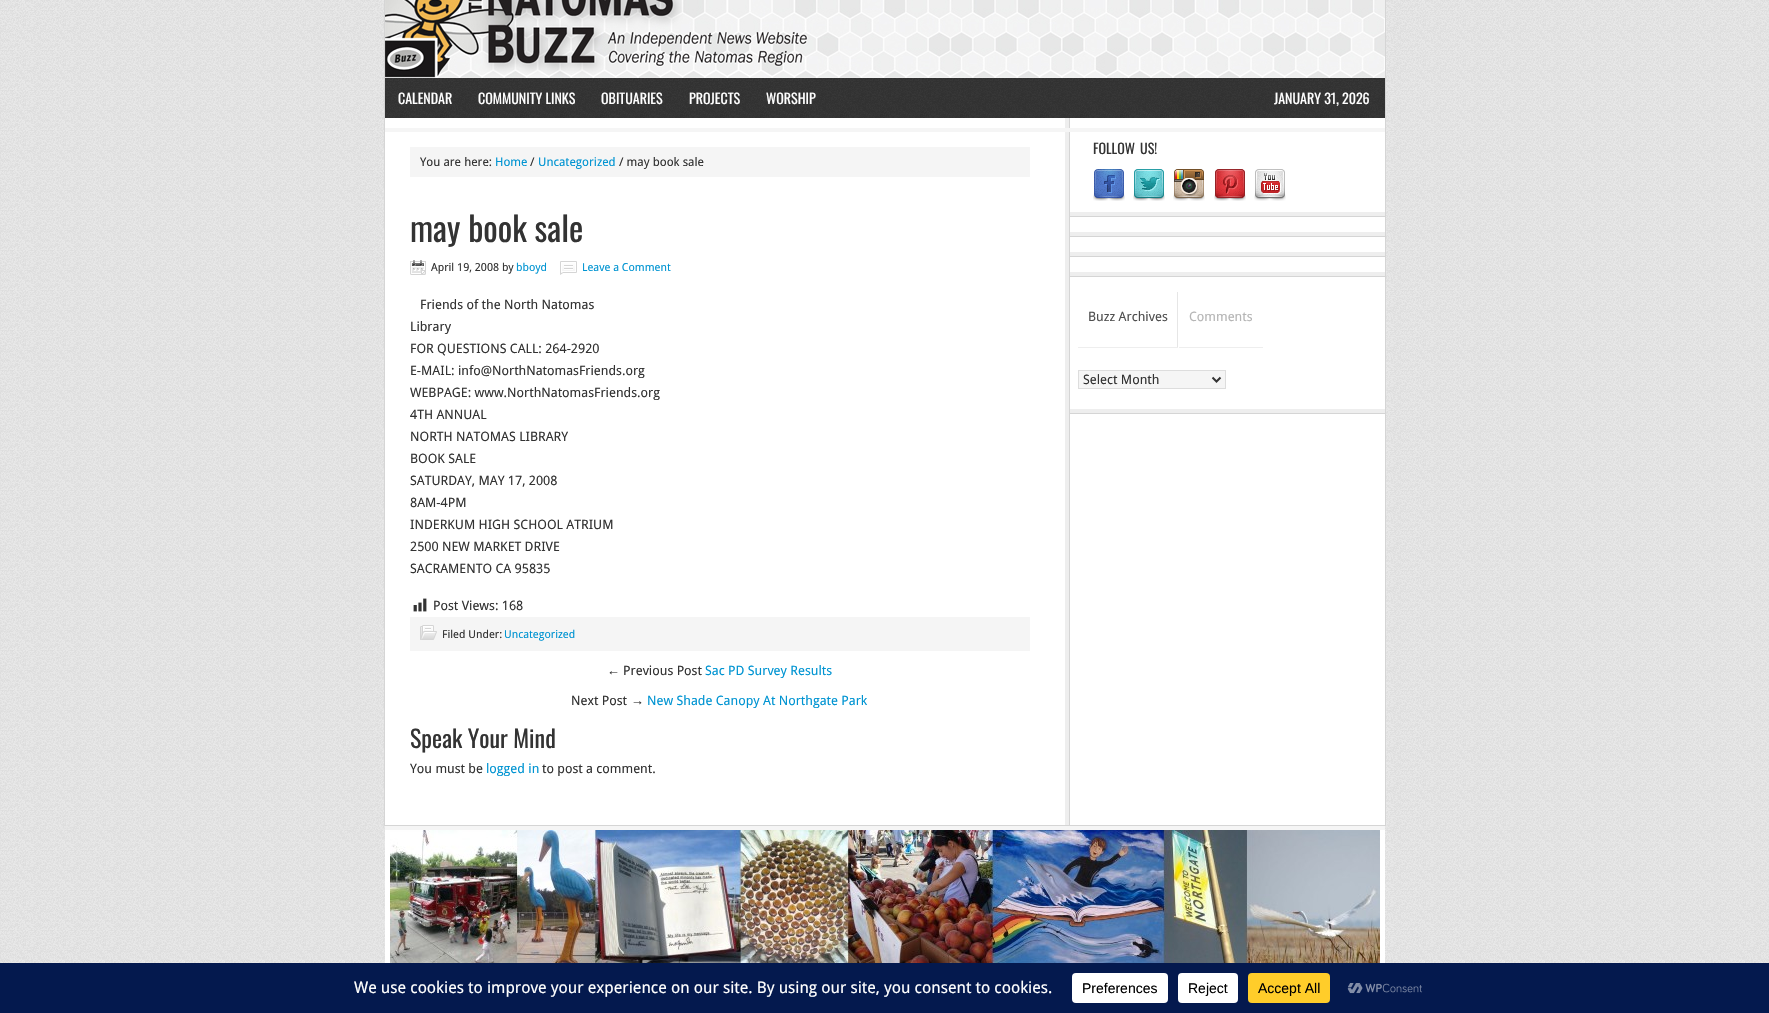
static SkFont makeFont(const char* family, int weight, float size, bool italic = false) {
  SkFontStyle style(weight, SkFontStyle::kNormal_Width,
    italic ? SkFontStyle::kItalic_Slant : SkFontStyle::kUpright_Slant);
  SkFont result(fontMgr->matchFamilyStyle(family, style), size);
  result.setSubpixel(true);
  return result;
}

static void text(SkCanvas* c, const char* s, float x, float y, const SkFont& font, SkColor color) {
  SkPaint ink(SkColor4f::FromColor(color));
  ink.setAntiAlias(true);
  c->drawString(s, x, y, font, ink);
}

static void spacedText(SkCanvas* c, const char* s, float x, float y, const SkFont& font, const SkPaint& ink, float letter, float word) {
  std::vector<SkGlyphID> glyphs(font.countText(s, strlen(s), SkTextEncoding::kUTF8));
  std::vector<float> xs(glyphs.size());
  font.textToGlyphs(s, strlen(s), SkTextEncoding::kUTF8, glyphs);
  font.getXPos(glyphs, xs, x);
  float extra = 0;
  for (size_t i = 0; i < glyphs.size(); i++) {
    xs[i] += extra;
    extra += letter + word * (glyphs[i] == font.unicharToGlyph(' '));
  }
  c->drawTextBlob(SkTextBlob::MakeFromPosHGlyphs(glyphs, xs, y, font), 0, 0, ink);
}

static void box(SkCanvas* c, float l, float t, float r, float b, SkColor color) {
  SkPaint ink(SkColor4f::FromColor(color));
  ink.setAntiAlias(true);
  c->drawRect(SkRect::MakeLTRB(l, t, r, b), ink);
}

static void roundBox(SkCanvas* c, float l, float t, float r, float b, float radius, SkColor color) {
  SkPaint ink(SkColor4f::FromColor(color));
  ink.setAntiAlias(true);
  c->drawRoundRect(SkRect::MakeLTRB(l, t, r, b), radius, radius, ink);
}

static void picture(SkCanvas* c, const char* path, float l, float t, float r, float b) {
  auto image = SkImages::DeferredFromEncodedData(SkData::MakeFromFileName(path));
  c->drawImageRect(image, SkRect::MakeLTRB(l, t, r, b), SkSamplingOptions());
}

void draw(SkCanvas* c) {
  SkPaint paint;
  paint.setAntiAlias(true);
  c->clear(0xffffffff);
  picture(c, "img_01.png", 0, 0, 1769, 963);
  picture(c, "img_02.png", 385, 0, 1385, 78);
  box(c, 1385, 0, 1386, 826, 0xffd5d5d5);
  box(c, 384, 0, 385, 118, 0xffd5d5d5);
  picture(c, "img_03.png", 385, 78, 1385, 118);
  SkFont face1 = makeFont("Oswald", 400, 14);
  text(c, "CALENDAR", 398, 104, face1, 0xffffffff);
  text(c, "COMMUNITY LINKS", 478, 104, face1, 0xffffffff);
  text(c, "OBITUARIES", 601, 104, face1, 0xffffffff);
  text(c, "PROJECTS", 689, 104, face1, 0xffffffff);
  text(c, "WORSHIP", 766, 104, face1, 0xffffffff);
  text(c, "JANUARY 31, 2026", 1274, 104, face1, 0xffffffff);
  picture(c, "img_04.png", 385, 118, 1385, 825);
  box(c, 384, 825, 1386, 826, 0xffd5d5d5);
  box(c, 384, 118, 385, 826, 0xffd5d5d5);
  box(c, 385, 128, 1385, 132, 0xfff5f5f5);
  box(c, 410, 147, 1030, 177, 0xfff5f5f5);
  SkFont face2 = makeFont("Droid Sans", 400, 12);
  text(c, "You are here:", 420, 166, face2, 0xff333333);
  text(c, "Home", 495, 166, face2, 0xff0094d2);
  text(c, "/", 530, 166, face2, 0xff333333);
  text(c, "Uncategorized", 538, 166, face2, 0xff0094d2);
  text(c, "/ may book sale", 619, 166, face2, 0xff333333);
  SkFont face3 = makeFont("Oswald", 400, 34);
  text(c, "may book sale", 410, 242, face3, 0xff333333);
  picture(c, "img_05.png", 410, 260, 426, 275);
  SkFont face4 = makeFont("Droid Sans", 400, 11);
  text(c, "April 19, 2008 by", 431, 271, face4, 0xff333333);
  text(c, "bboyd", 516, 271, face4, 0xff0094d2);
  picture(c, "img_06.png", 560, 261, 577, 275);
  text(c, "Leave a Comment", 582, 271, face4, 0xff0094d2);
  SkFont face5 = makeFont("Droid Sans", 400, 13);
  text(c, "Friends of the North Natomas", 420, 309, face5, 0xff333333);
  text(c, "Library", 410, 331, face5, 0xff333333);
  text(c, "FOR QUESTIONS CALL: 264-2920", 410, 353, face5, 0xff333333);
  text(c, "E-MAIL: info@NorthNatomasFriends.org", 410, 375, face5, 0xff333333);
  text(c, "WEBPAGE: www.NorthNatomasFriends.org", 410, 397, face5, 0xff333333);
  text(c, "4TH ANNUAL", 410, 419, face5, 0xff333333);
  text(c, "NORTH NATOMAS LIBRARY", 410, 441, face5, 0xff333333);
  text(c, "BOOK SALE", 410, 463, face5, 0xff333333);
  text(c, "SATURDAY, MAY 17, 2008", 410, 485, face5, 0xff333333);
  text(c, "8AM-4PM", 410, 507, face5, 0xff333333);
  text(c, "INDERKUM HIGH SCHOOL ATRIUM", 410, 529, face5, 0xff333333);
  text(c, "2500 NEW MARKET DRIVE", 410, 551, face5, 0xff333333);
  text(c, "SACRAMENTO CA 95835", 410, 573, face5, 0xff333333);
  picture(c, "img_07.png", 413, 598, 427, 612);
  text(c, "Post Views: 168", 433, 610, face5, 0xff333333);
  box(c, 410, 617, 1030, 651, 0xfff5f5f5);
  picture(c, "img_08.png", 420, 625, 437, 640);
  text(c, "Filed Under:", 442, 638, face4, 0xff333333);
  text(c, "Uncategorized", 504, 638, face4, 0xff0094d2);
  SkFont face6 = makeFont("Liberation Sans", 400, 13);
  text(c, "←", 607, 675, face6, 0xff333333);
  text(c, "Previous Post", 623, 675, face5, 0xff333333);
  text(c, "Sac PD Survey Results", 705, 675, face5, 0xff0094d2);
  text(c, "Next Post", 571, 705, face5, 0xff333333);
  text(c, "→", 631, 705, face6, 0xff333333);
  text(c, "New Shade Canopy At Northgate Park", 647, 705, face5, 0xff0094d2);
  SkFont face7 = makeFont("Oswald", 400, 24);
  text(c, "Speak Your Mind", 410, 748, face7, 0xff333333);
  text(c, "You must be", 410, 773, face5, 0xff333333);
  text(c, "logged in", 486, 773, face5, 0xff0094d2);
  text(c, "to post a comment.", 542, 773, face5, 0xff333333);
  box(c, 1070, 216, 1385, 217, 0xffd5d5d5);
  box(c, 1070, 212, 1385, 216, 0xffeeeeee);
  paint.setColor(0xff333333);
  spacedText(c, "FOLLOW US!", 1093, 154, face1, paint, 0, 2);
  picture(c, "img_09.png", 1093, 169, 1125, 201);
  picture(c, "img_10.png", 1133, 169, 1165, 201);
  picture(c, "img_11.png", 1173, 169, 1205, 201);
  picture(c, "img_12.png", 1214, 169, 1246, 201);
  picture(c, "img_13.png", 1254, 169, 1286, 201);
  box(c, 1070, 236, 1385, 237, 0xffd5d5d5);
  box(c, 1070, 232, 1385, 236, 0xffeeeeee);
  box(c, 1070, 256, 1385, 257, 0xffd5d5d5);
  box(c, 1070, 252, 1385, 256, 0xffeeeeee);
  box(c, 1070, 276, 1385, 277, 0xffd5d5d5);
  box(c, 1070, 272, 1385, 276, 0xffeeeeee);
  box(c, 1070, 413, 1385, 414, 0xffd5d5d5);
  box(c, 1070, 409, 1385, 413, 0xffeeeeee);
  box(c, 1177, 292, 1178, 348, 0xffe6e6e6);
  box(c, 1078, 347, 1263, 348, 0xffeeeeee);
  text(c, "Buzz Archives", 1088, 321, face5, 0xff4f4f4f);
  box(c, 1178, 347, 1179, 348, 0xffffffff);
  text(c, "Comments", 1189, 321, face5, 0xffb5b5b5);
  paint.setColor(0xfff5f5f5);
  c->drawRect(SkRect::MakeLTRB(1078.5f, 370.5f, 1225.5f, 388.5f), paint);
  paint.setStyle(SkPaint::kStroke_Style);
  paint.setStrokeWidth(1);
  paint.setColor(0xffdddddd);
  c->drawRect(SkRect::MakeLTRB(1078.5f, 370.5f, 1225.5f, 388.5f), paint);
  paint.setStrokeWidth(2);
  paint.setColor(0xff333333);
  c->drawPath(SkPathBuilder().moveTo(1212.5f, 377.5f).lineTo(1216.5f, 381.5f).lineTo(1220.5f, 377.5f).detach(), paint);
  text(c, "Select Month", 1083, 384, face5, 0xff333333);
  box(c, 385, 830, 1385, 963, 0xffffffff);
  box(c, 385, 826, 1385, 830, 0xfff5f5f5);
  picture(c, "img_14.png", 390, 830, 1380, 963);
  box(c, 0, 963, 1769, 1013, 0xff04194e);
  SkFont face8 = makeFont("Droid Sans", 400, 16);
  text(c, "We use cookies to improve your experience on our site. By using our site, you consent to cookies.", 354, 993, face8, 0xffffffff);
  roundBox(c, 1072, 973, 1168, 1003, 4, 0xffffffff);
  SkFont face9 = makeFont("Liberation Sans", 400, 14);
  text(c, "Preferences", 1082, 993, face9, 0xff000000);
  roundBox(c, 1178, 973, 1238, 1003, 4, 0xffffffff);
  text(c, "Reject", 1188, 993, face9, 0xff000000);
  roundBox(c, 1248, 973, 1330, 1003, 4, 0xffffcd2a);
  text(c, "Accept All", 1258, 993, face9, 0xff000000);
  picture(c, "img_15.png", 1347, 983, 1422, 994);
}
